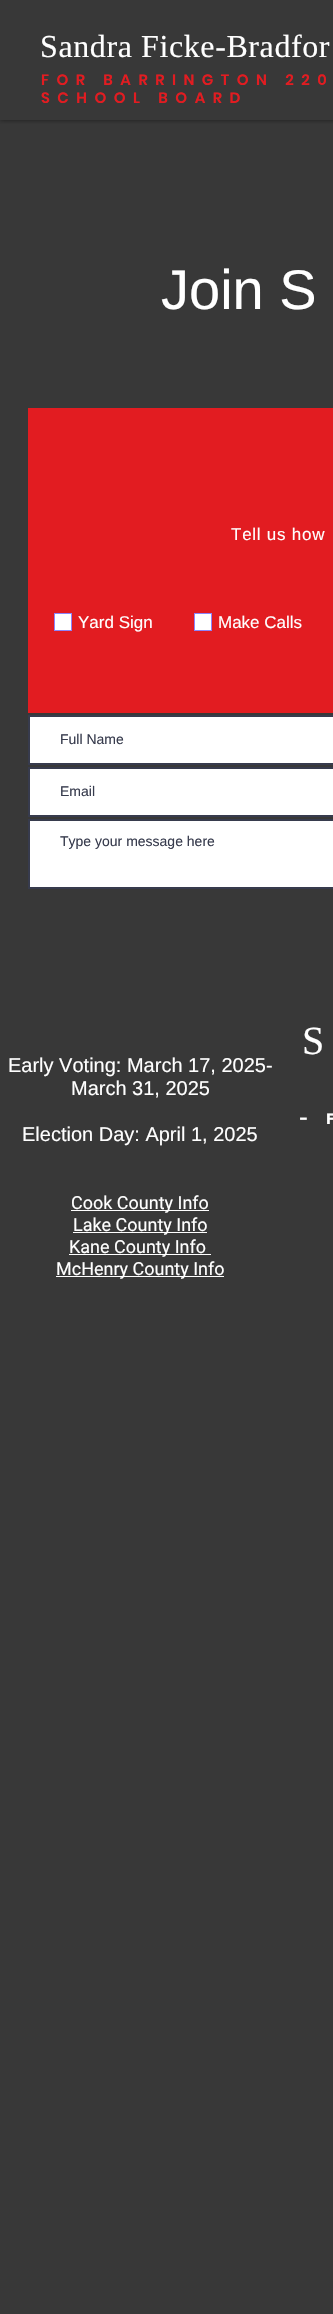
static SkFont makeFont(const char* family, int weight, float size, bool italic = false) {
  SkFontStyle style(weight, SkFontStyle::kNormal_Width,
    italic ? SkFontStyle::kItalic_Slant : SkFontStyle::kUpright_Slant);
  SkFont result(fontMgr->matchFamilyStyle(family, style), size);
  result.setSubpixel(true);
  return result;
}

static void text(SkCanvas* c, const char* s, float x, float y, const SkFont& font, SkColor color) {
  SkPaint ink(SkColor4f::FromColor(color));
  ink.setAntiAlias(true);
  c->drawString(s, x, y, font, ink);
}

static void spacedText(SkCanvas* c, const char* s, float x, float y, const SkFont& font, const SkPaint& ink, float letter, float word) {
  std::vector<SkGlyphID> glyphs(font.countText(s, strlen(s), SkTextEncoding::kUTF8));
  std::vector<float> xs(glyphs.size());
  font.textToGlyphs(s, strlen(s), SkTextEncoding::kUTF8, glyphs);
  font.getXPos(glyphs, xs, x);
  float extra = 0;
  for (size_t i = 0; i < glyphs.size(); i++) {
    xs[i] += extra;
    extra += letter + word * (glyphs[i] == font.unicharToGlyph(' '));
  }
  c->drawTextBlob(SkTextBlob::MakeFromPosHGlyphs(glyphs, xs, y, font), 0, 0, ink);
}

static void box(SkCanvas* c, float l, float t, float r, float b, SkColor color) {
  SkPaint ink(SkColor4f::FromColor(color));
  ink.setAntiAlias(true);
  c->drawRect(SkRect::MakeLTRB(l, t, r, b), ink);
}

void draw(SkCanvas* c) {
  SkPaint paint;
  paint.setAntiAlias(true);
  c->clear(0xff383838);
  c->save();
  c->clipRect(SkRect::MakeLTRB(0, 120, 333, 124));
  paint.setColor(0x80000000);
  paint.setMaskFilter(SkMaskFilter::MakeBlur(kNormal_SkBlurStyle, 2.5f));
  c->drawRect(SkRect::MakeLTRB(0, 0, 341, 120), paint);
  paint.setMaskFilter(nullptr);
  c->restore();
  SkFont face1 = makeFont("Liberation Serif", 400, 32);
  paint.setColor(0xffffffff);
  spacedText(c, "Sandra Ficke-Bradfor", 40, 57, face1, paint, 0.6f, 0);
  SkFont face2 = makeFont("Poppins", 600, 15);
  paint.setColor(0xffe21c21);
  spacedText(c, "FOR BARRINGTON 220", 41, 85, face2, paint, 7.5f, 0);
  spacedText(c, "SCHOOL BOARD", 41, 103, face2, paint, 7.5f, 0);
  SkFont face3 = makeFont("Liberation Sans", 400, 56);
  text(c, "Join S", 161, 309, face3, 0xffffffff);
  box(c, 28, 408, 333, 713, 0xffe21c21);
  SkFont face4 = makeFont("Liberation Sans", 400, 17);
  paint.setColor(0xffffffff);
  spacedText(c, "Tell us how", 231, 540, face4, paint, 0.75f, 0);
  c->drawRect(SkRect::MakeLTRB(54.5f, 613.5f, 71.5f, 630.5f), paint);
  paint.setStyle(SkPaint::kStroke_Style);
  paint.setStrokeWidth(1);
  paint.setColor(0xff8c84fa);
  c->drawRect(SkRect::MakeLTRB(54.5f, 613.5f, 71.5f, 630.5f), paint);
  text(c, "Yard Sign", 78, 628, face4, 0xffffffff);
  paint.setStyle(SkPaint::kFill_Style);
  paint.setColor(0xffffffff);
  c->drawRect(SkRect::MakeLTRB(194.5f, 613.5f, 211.5f, 630.5f), paint);
  paint.setStyle(SkPaint::kStroke_Style);
  paint.setColor(0xff8c84fa);
  c->drawRect(SkRect::MakeLTRB(194.5f, 613.5f, 211.5f, 630.5f), paint);
  text(c, "Make Calls", 218, 628, face4, 0xffffffff);
  paint.setStyle(SkPaint::kFill_Style);
  paint.setColor(0xffffffff);
  c->drawRect(SkRect::MakeLTRB(29, 716, 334, 764), paint);
  paint.setStyle(SkPaint::kStroke_Style);
  paint.setStrokeWidth(2);
  paint.setColor(0xff373b4d);
  c->drawRect(SkRect::MakeLTRB(29, 716, 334, 764), paint);
  SkFont face5 = makeFont("Liberation Sans", 400, 14);
  text(c, "Full Name", 60, 744, face5, 0xff373b4d);
  paint.setStyle(SkPaint::kFill_Style);
  paint.setColor(0xffffffff);
  c->drawRect(SkRect::MakeLTRB(29, 768, 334, 816), paint);
  paint.setStyle(SkPaint::kStroke_Style);
  paint.setColor(0xff373b4d);
  c->drawRect(SkRect::MakeLTRB(29, 768, 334, 816), paint);
  text(c, "Email", 60, 796, face5, 0xff373b4d);
  paint.setStyle(SkPaint::kFill_Style);
  paint.setColor(0xffffffff);
  c->drawRect(SkRect::MakeLTRB(29, 820, 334, 888), paint);
  paint.setStyle(SkPaint::kStroke_Style);
  paint.setColor(0xff373b4d);
  c->drawRect(SkRect::MakeLTRB(29, 820, 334, 888), paint);
  text(c, "Type your message here", 60, 846, face5, 0xff373b4d);
  SkFont face6 = makeFont("Liberation Sans", 400, 20);
  text(c, "Early Voting: March 17, 2025-", 8, 1072, face6, 0xffffffff);
  text(c, "March 31, 2025", 71, 1095, face6, 0xffffffff);
  text(c, "Election Day: April 1, 2025", 22, 1141, face6, 0xffffffff);
  box(c, 71, 1210, 209, 1211, 0xffffffff);
  SkFont face7 = makeFont("Roboto", 400, 18);
  text(c, "Cook County Info", 71, 1209, face7, 0xffffffff);
  box(c, 73, 1232, 207, 1233, 0xffffffff);
  text(c, "Lake County Info", 73, 1231, face7, 0xffffffff);
  box(c, 69, 1254, 211, 1255, 0xffffffff);
  text(c, "Kane County Info", 69, 1253, face7, 0xffffffff);
  box(c, 56, 1276, 224, 1277, 0xffffffff);
  text(c, "McHenry County Info", 56, 1275, face7, 0xffffffff);
  SkFont face8 = makeFont("Liberation Serif", 400, 40);
  text(c, "S", 302, 1054, face8, 0xffffffff);
  SkFont face9 = makeFont("Poppins", 700, 15);
  paint.setStyle(SkPaint::kFill_Style);
  paint.setColor(0xffffffff);
  spacedText(c, "- F", 300, 1124, face9, paint, 7.5f, 0);
}
